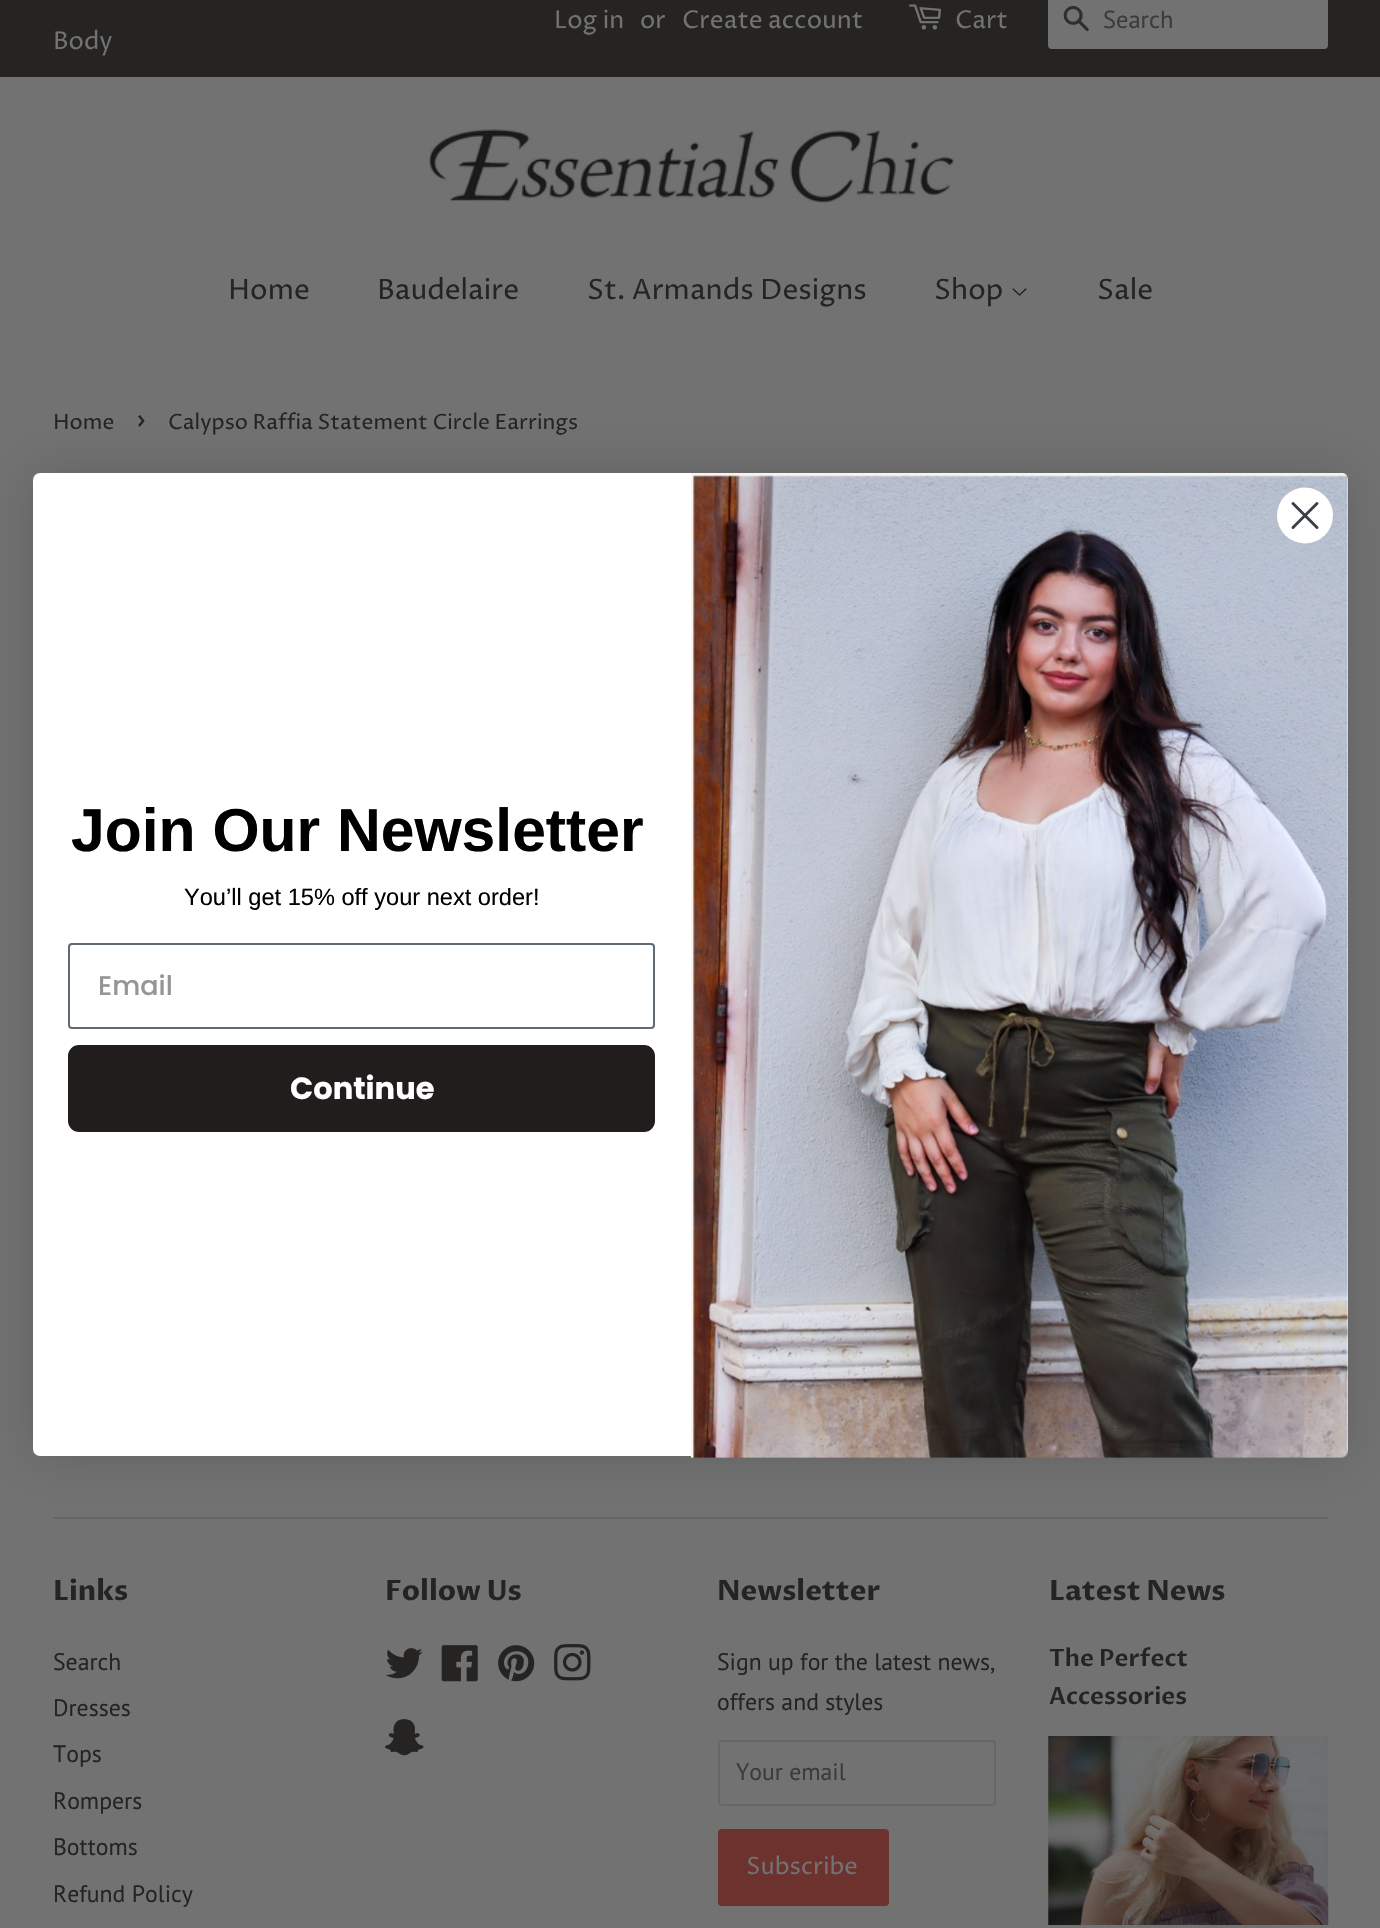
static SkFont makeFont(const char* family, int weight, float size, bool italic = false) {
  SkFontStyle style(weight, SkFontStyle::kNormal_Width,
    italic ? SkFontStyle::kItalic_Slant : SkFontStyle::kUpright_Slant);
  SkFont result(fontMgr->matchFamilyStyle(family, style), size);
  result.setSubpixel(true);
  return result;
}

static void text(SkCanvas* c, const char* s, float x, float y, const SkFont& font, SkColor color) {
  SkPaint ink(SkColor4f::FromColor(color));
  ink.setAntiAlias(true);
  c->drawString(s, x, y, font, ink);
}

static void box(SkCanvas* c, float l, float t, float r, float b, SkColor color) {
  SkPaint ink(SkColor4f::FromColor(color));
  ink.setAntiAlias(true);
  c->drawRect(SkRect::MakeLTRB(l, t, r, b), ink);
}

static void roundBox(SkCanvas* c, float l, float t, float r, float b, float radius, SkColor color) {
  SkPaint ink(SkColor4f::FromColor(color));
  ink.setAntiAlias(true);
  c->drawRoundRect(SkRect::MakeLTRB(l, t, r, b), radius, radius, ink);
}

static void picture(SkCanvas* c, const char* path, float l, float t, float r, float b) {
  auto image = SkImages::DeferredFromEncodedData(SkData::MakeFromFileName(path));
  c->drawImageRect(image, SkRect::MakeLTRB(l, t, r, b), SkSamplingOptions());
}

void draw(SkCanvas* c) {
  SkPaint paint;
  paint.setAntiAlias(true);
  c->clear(0xff727272);
  box(c, 0, 0, 1380, 77, 0xff262422);
  SkFont face1 = makeFont("Proza Libre", 400, 24.5f);
  text(c, "Log in", 554, 28, face1, 0xff727272);
  text(c, "or", 640, 28, face1, 0xff727272);
  text(c, "Create account", 682, 28, face1, 0xff727272);
  picture(c, "img_01.png", 909, 4, 941, 30);
  text(c, "Cart", 955, 28, face1, 0xff727272);
  roundBox(c, 1048, -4, 1328, 49, 4, 0xff727272);
  picture(c, "img_02.png", 1063, 6, 1089, 31);
  SkFont face2 = makeFont("PT Sans", 400, 24.5f);
  text(c, "Search", 1103, 28, face2, 0xff3b3b3b);
  text(c, "Body", 53, 49, face1, 0xff727272);
  picture(c, "img_03.png", 428, 129, 954, 203);
  SkFont face3 = makeFont("Proza Libre", 400, 28);
  text(c, "Home", 228, 299, face3, 0xff262422);
  text(c, "Baudelaire", 377, 299, face3, 0xff262422);
  text(c, "St. Armands Designs", 587, 299, face3, 0xff262422);
  text(c, "Shop", 934, 299, face3, 0xff262422);
  picture(c, "img_04.png", 1012, 288, 1027, 296);
  text(c, "Sale", 1097, 299, face3, 0xff262422);
  SkFont face4 = makeFont("Proza Libre", 400, 21);
  text(c, "Home", 53, 429, face4, 0xff262422);
  SkFont face5 = makeFont("Proza Libre", 400, 29);
  text(c, "›", 136, 429, face5, 0xff262422);
  text(c, "Calypso Raffia Statement Circle Earrings", 168, 429, face4, 0xff262422);
  box(c, 53, 1517, 1328, 1519, 0xff646464);
  paint.setColor(0x26000000);
  paint.setMaskFilter(SkMaskFilter::MakeBlur(kNormal_SkBlurStyle, 25.5f));
  c->drawRoundRect(SkRect::MakeLTRB(33, 473, 1348, 1456), 7, 7, paint);
  paint.setMaskFilter(nullptr);
  roundBox(c, 33, 473, 1348, 1456, 7, 0xffffffff);
  picture(c, "img_05.png", 691, 473, 1348, 1458);
  paint.setColor(0xffffffff);
  c->drawCircle(1305, 515.5f, 28, paint);
  paint.setStyle(SkPaint::kStroke_Style);
  paint.setStrokeWidth(2.9f);
  paint.setStrokeCap(SkPaint::kRound_Cap);
  paint.setStrokeJoin(SkPaint::kRound_Join);
  paint.setColor(0xff373f47);
  c->drawPath(SkPathBuilder().moveTo(1293, 503.5f).lineTo(1317, 527.5f).moveTo(1293, 527.5f).lineTo(1317, 503.5f).close().detach(), paint);
  SkFont face6 = makeFont("Liberation Sans", 700, 60.6f);
  text(c, "Join Our Newsletter", 71, 851, face6, 0xff000000);
  SkFont face7 = makeFont("Liberation Sans", 400, 23.6f);
  text(c, "You’ll get 15% off your next order!", 184, 905, face7, 0xff000000);
  paint.setStrokeWidth(2);
  paint.setStrokeCap(SkPaint::kButt_Cap);
  paint.setStrokeJoin(SkPaint::kMiter_Join);
  paint.setColor(0xff606a72);
  c->drawRoundRect(SkRect::MakeLTRB(69, 944, 654, 1028), 3, 3, paint);
  SkFont face8 = makeFont("Poppins", 500, 27);
  text(c, "Email", 98, 995, face8, 0xff949596);
  paint.setStyle(SkPaint::kFill_Style);
  paint.setColor(0xff211d1c);
  c->drawRoundRect(SkRect::MakeLTRB(73, 1050, 650, 1127), 6, 6, paint);
  paint.setStyle(SkPaint::kStroke_Style);
  paint.setStrokeWidth(10);
  c->drawRoundRect(SkRect::MakeLTRB(73, 1050, 650, 1127), 6, 6, paint);
  SkFont face9 = makeFont("Poppins", 700, 30.5f);
  text(c, "Continue", 290, 1099, face9, 0xffffffff);
  SkFont face10 = makeFont("Proza Libre", 700, 28);
  text(c, "Links", 53, 1600, face10, 0xff262422);
  SkFont face11 = makeFont("PT Sans", 400, 23.75f);
  text(c, "Search", 53, 1670, face11, 0xff262422);
  text(c, "Dresses", 53, 1716, face11, 0xff262422);
  text(c, "Tops", 53, 1762, face11, 0xff262422);
  text(c, "Rompers", 53, 1809, face11, 0xff262422);
  text(c, "Bottoms", 53, 1855, face11, 0xff262422);
  text(c, "Refund Policy", 53, 1902, face11, 0xff262422);
  text(c, "Follow Us", 385, 1600, face10, 0xff262422);
  picture(c, "img_06.png", 385, 1648, 423, 1679);
  picture(c, "img_07.png", 441, 1645, 478, 1682);
  picture(c, "img_08.png", 498, 1645, 535, 1682);
  picture(c, "img_09.png", 554, 1644, 591, 1681);
  picture(c, "img_10.png", 385, 1719, 424, 1756);
  text(c, "Newsletter", 717, 1600, face10, 0xff262422);
  text(c, "Sign up for the latest news,", 717, 1670, face11, 0xff262422);
  text(c, "offers and styles", 717, 1710, face11, 0xff262422);
  paint.setStrokeWidth(2);
  paint.setColor(0xff666666);
  c->drawRoundRect(SkRect::MakeLTRB(719, 1741, 995, 1805), 3, 3, paint);
  text(c, "Your email", 736, 1780, face11, 0xff3b3b3b);
  roundBox(c, 718, 1829, 889, 1906, 4, 0xff6d312e);
  SkFont face12 = makeFont("Proza Libre", 400, 23.75f);
  text(c, "Subscribe", 746, 1874, face12, 0xff727272);
  text(c, "Latest News", 1049, 1600, face10, 0xff262422);
  SkFont face13 = makeFont("Proza Libre", 600, 23.75f);
  text(c, "The Perfect", 1049, 1666, face13, 0xff262422);
  text(c, "Accessories", 1049, 1704, face13, 0xff262422);
  picture(c, "img_11.png", 1048, 1736, 1329, 1925);
}
